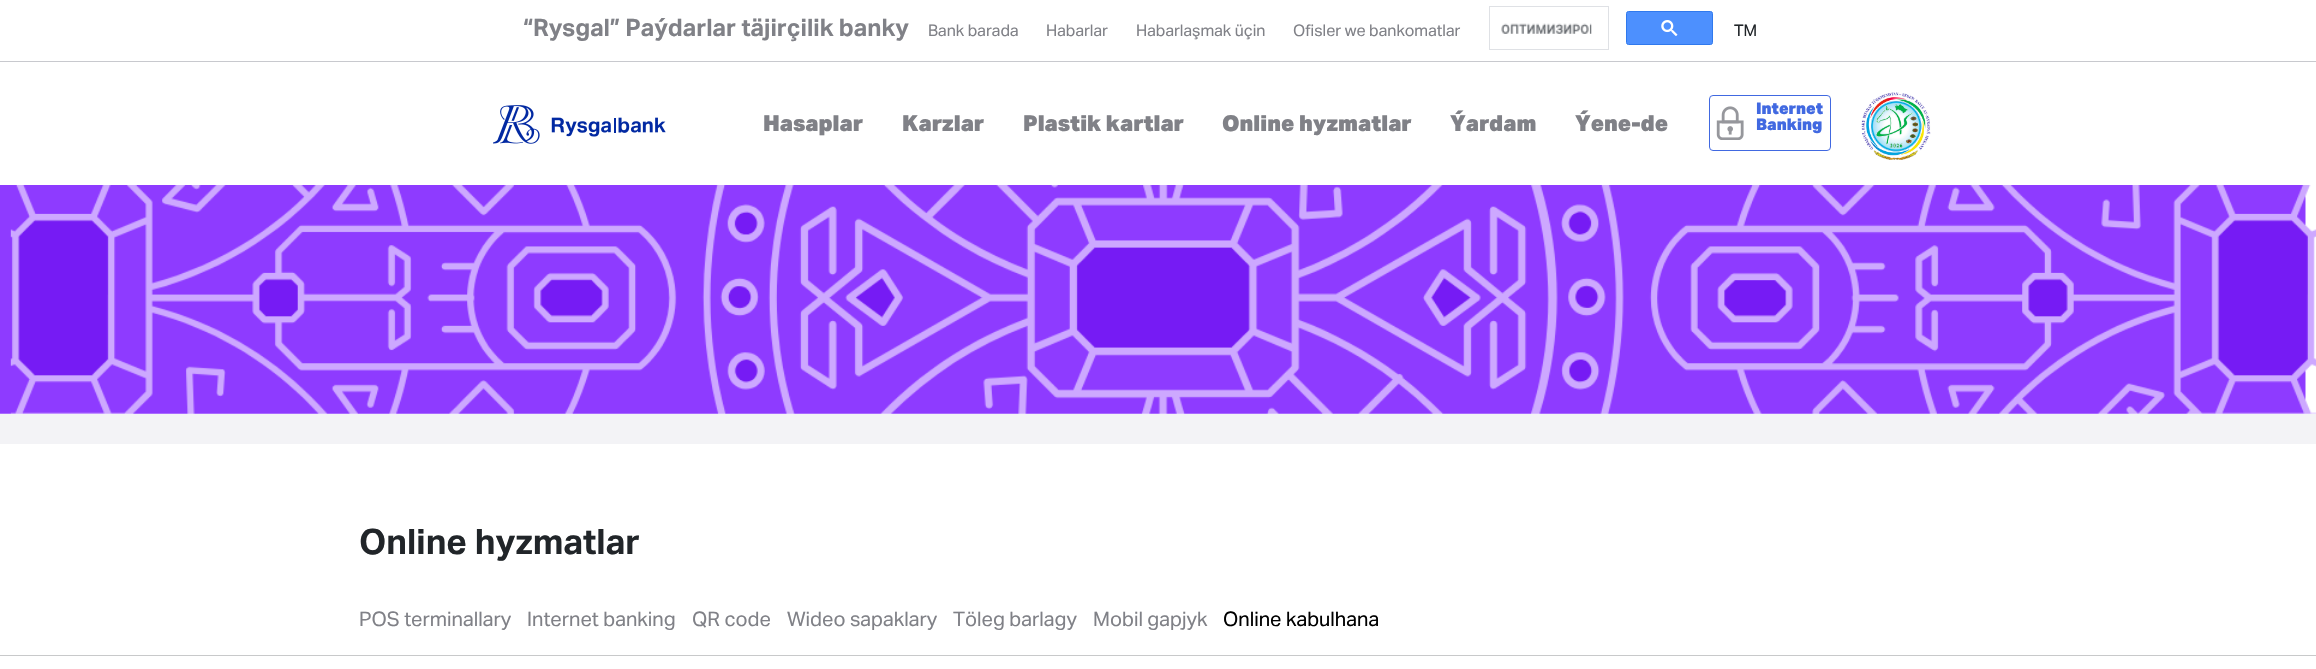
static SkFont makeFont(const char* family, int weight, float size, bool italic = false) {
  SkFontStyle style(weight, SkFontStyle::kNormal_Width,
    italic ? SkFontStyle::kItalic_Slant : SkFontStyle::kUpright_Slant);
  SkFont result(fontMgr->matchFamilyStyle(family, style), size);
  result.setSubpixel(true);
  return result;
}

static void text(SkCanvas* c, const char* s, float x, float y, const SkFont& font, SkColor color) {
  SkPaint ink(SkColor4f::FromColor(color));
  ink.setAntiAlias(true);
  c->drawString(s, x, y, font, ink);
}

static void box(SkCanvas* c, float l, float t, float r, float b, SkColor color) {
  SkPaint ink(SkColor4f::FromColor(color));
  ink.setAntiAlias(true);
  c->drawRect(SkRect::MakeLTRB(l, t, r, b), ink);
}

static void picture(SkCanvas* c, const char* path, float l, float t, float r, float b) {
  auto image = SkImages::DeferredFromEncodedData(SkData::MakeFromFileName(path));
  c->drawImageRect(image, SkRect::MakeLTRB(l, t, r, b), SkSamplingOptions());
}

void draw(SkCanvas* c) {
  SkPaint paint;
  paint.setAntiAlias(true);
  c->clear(0xffffffff);
  box(c, 0, 61, 2316, 62, 0xffc8c9ce);
  SkFont face1 = makeFont("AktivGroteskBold", 700, 24);
  text(c, "“Rysgal” Paýdarlar täjirçilik banky", 523, 36, face1, 0xff808187);
  SkFont face2 = makeFont("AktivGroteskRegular", 400, 16);
  text(c, "Bank barada", 928, 36, face2, 0xff808187);
  text(c, "Habarlar", 1046, 36, face2, 0xff808187);
  text(c, "Habarlaşmak üçin", 1136, 36, face2, 0xff808187);
  text(c, "Ofisler we bankomatlar", 1293, 36, face2, 0xff808187);
  paint.setStyle(SkPaint::kStroke_Style);
  paint.setStrokeWidth(1);
  paint.setColor(0xffdfe1e5);
  c->drawRect(SkRect::MakeLTRB(1489.5f, 6.5f, 1608.5f, 49.5f), paint);
  picture(c, "img_01.png", 1501, 23, 1592, 34);
  paint.setStyle(SkPaint::kFill_Style);
  paint.setColor(0xff4d90fe);
  c->drawRoundRect(SkRect::MakeLTRB(1626.5f, 11.5f, 1712.5f, 44.5f), 2, 2, paint);
  paint.setStyle(SkPaint::kStroke_Style);
  paint.setColor(0xff3079ed);
  c->drawRoundRect(SkRect::MakeLTRB(1626.5f, 11.5f, 1712.5f, 44.5f), 2, 2, paint);
  picture(c, "img_02.png", 1661, 20, 1678, 36);
  text(c, "TM", 1734, 36, face2, 0xff212529);
  picture(c, "img_03.png", 493, 105, 666, 144);
  SkFont face3 = makeFont("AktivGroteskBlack", 900, 22);
  text(c, "Hasaplar", 763, 131, face3, 0xff808187);
  text(c, "Karzlar", 902, 131, face3, 0xff808187);
  text(c, "Plastik kartlar", 1023, 131, face3, 0xff808187);
  text(c, "Online hyzmatlar", 1222, 131, face3, 0xff808187);
  text(c, "Ýardam", 1450, 131, face3, 0xff808187);
  text(c, "Ýene-de", 1575, 131, face3, 0xff808187);
  paint.setColor(0xff4169e1);
  c->drawRoundRect(SkRect::MakeLTRB(1709.5f, 95.5f, 1830.5f, 150.5f), 3.5f, 3.5f, paint);
  picture(c, "img_04.png", 1716, 106, 1744, 140);
  SkFont face4 = makeFont("AktivGroteskBlack", 900, 16);
  text(c, "Internet", 1756, 114, face4, 0xff4169e1);
  text(c, "Banking", 1756, 130, face4, 0xff4169e1);
  picture(c, "img_05.png", 1861, 92, 1931, 160);
  picture(c, "img_06.png", 0, 185, 2316, 414);
  box(c, 0, 414, 2316, 444, 0xfff3f3f6);
  SkFont face5 = makeFont("AktivGroteskBold", 700, 35);
  text(c, "Online hyzmatlar", 359, 554, face5, 0xff212529);
  SkFont face6 = makeFont("AktivGroteskRegular", 400, 20);
  text(c, "POS terminallary", 359, 626, face6, 0xff808187);
  text(c, "Internet banking", 527, 626, face6, 0xff808187);
  text(c, "QR code", 692, 626, face6, 0xff808187);
  text(c, "Wideo sapaklary", 787, 626, face6, 0xff808187);
  text(c, "Töleg barlagy", 953, 626, face6, 0xff808187);
  text(c, "Mobil gapjyk", 1093, 626, face6, 0xff808187);
  text(c, "Online kabulhana", 1223, 626, face6, 0xff000000);
  box(c, 0, 655, 2316, 656, 0xffc8c9ca);
}
